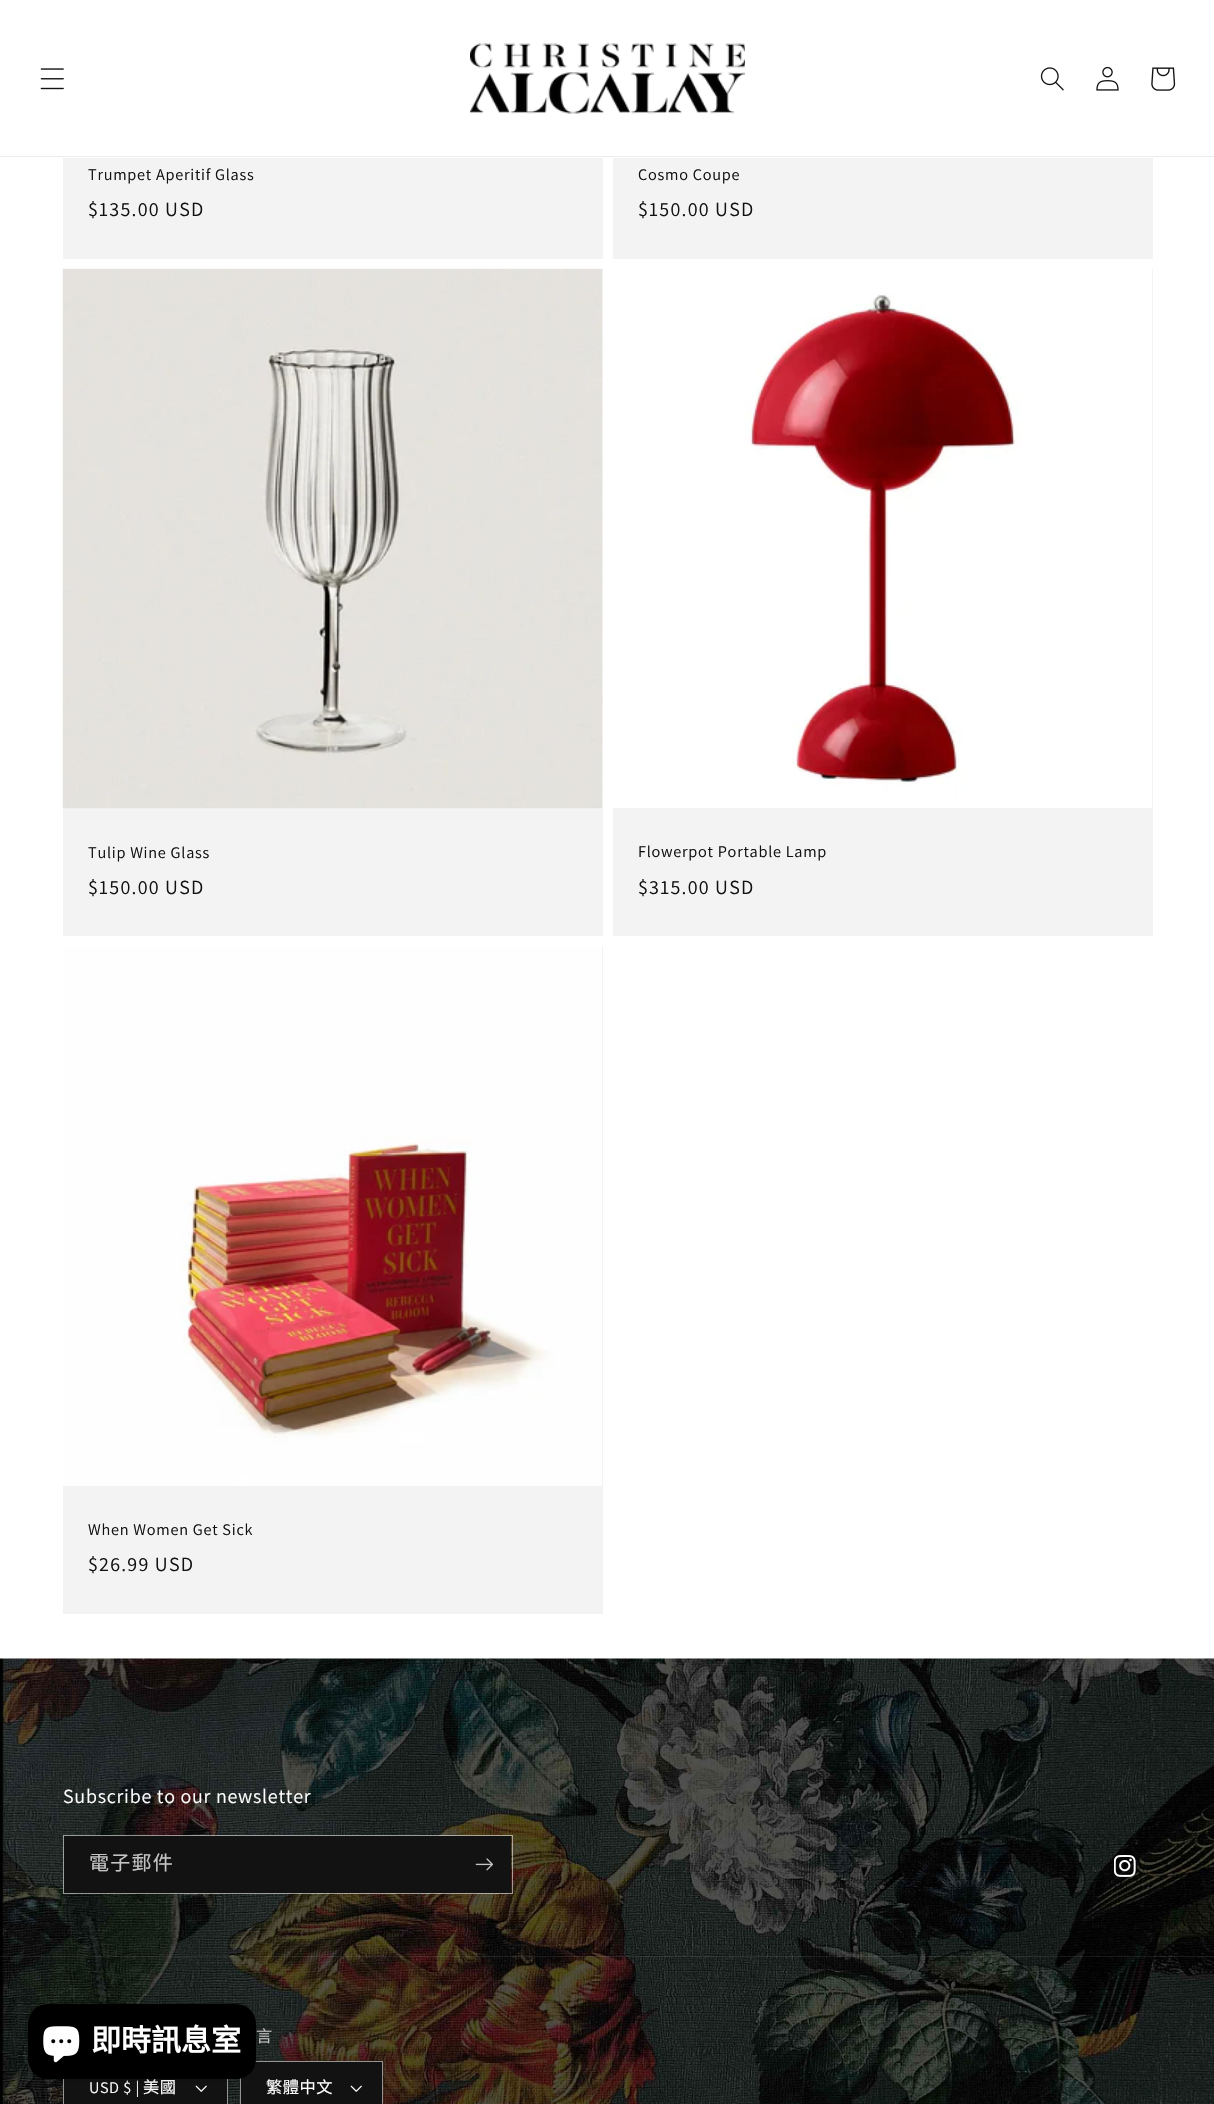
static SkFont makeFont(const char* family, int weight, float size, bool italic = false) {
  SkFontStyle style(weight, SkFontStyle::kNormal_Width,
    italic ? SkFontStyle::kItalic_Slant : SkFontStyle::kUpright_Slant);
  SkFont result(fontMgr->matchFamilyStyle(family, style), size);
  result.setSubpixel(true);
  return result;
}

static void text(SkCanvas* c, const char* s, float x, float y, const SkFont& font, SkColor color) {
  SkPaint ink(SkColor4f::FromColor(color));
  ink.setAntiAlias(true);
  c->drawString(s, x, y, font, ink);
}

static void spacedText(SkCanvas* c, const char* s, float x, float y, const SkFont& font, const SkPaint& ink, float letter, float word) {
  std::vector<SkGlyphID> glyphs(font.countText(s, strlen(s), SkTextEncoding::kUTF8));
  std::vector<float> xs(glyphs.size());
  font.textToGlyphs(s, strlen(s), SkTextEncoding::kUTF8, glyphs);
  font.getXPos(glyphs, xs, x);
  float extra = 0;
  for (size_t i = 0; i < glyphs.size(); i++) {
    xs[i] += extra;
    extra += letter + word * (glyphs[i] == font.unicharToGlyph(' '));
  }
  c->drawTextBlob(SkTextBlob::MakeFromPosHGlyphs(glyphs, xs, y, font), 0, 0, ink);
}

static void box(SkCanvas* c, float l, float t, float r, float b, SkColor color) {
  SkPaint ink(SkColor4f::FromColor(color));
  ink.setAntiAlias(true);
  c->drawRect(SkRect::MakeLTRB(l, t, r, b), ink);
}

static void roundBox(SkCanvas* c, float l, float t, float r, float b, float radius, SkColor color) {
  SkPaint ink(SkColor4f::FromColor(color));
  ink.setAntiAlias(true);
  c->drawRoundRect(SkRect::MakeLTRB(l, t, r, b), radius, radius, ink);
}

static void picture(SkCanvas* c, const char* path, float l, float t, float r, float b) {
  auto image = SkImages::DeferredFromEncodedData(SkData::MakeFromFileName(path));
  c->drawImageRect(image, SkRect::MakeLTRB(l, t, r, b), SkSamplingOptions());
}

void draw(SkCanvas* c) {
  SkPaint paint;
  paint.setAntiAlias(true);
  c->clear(0xffffffff);
  box(c, 0, 156, 1214, 157, 0xffececec);
  picture(c, "img_01.png", 40, 68, 64, 90);
  picture(c, "img_02.png", 470, 43, 745, 114);
  picture(c, "img_03.png", 1040, 67, 1064, 91);
  picture(c, "img_04.png", 1096, 66, 1119, 91);
  picture(c, "img_05.png", 1151, 67, 1176, 91);
  box(c, 63, 158, 603, 259, 0xfff3f3f3);
  SkFont face1 = makeFont("Assistant", 400, 16.25f);
  paint.setColor(0xff121212);
  spacedText(c, "Trumpet Aperitif Glass", 88, 180, face1, paint, 0.75f, 0);
  SkFont face2 = makeFont("Assistant", 400, 20);
  spacedText(c, "$135.00 USD", 88, 216, face2, paint, 1.25f, 0);
  box(c, 613, 158, 1153, 259, 0xfff3f3f3);
  spacedText(c, "Cosmo Coupe", 638, 180, face1, paint, 0.75f, 0);
  spacedText(c, "$150.00 USD", 638, 216, face2, paint, 1.25f, 0);
  box(c, 63, 269, 603, 936, 0xfff3f3f3);
  picture(c, "img_06.png", 62, 268, 603, 809);
  spacedText(c, "Tulip Wine Glass", 88, 858, face1, paint, 0.75f, 0);
  spacedText(c, "$150.00 USD", 88, 894, face2, paint, 1.25f, 0);
  box(c, 613, 269, 1153, 936, 0xfff3f3f3);
  picture(c, "img_07.png", 613, 269, 1152, 808);
  spacedText(c, "Flowerpot Portable Lamp", 638, 857, face1, paint, 0.75f, 0);
  spacedText(c, "$315.00 USD", 638, 894, face2, paint, 1.25f, 0);
  box(c, 63, 946, 603, 1614, 0xfff3f3f3);
  picture(c, "img_08.png", 63, 946, 602, 1486);
  spacedText(c, "When Women Get Sick", 88, 1535, face1, paint, 0.75f, 0);
  spacedText(c, "$26.99 USD", 88, 1571, face2, paint, 1.25f, 0);
  picture(c, "img_09.png", 0, 1658, 1214, 2104);
  paint.setColor(0xffffffff);
  spacedText(c, "Subscribe to our newsletter", 63, 1803, face2, paint, 0.75f, 0);
  box(c, 64, 1836, 511, 1893, 0xff121212);
  paint.setStyle(SkPaint::kStroke_Style);
  paint.setStrokeWidth(1);
  paint.setColor(0x8cffffff);
  c->drawRect(SkRect::MakeLTRB(63.5f, 1835.5f, 512.5f, 1893.5f), paint);
  SkFont face3 = makeFont("Noto Sans CJK TC", 400, 20);
  paint.setStyle(SkPaint::kFill_Style);
  paint.setColor(0xffc4c4c4);
  spacedText(c, "電子郵件", 89, 1870, face3, paint, 1.25f, 0);
  picture(c, "img_10.png", 475, 1858, 493, 1871);
  picture(c, "img_11.png", 1114, 1855, 1136, 1877);
  box(c, 0, 1956, 1214, 1957, 0x14ffffff);
  box(c, 64, 2079, 227, 2104, 0xff121212);
  picture(c, "img_12.png", 195, 2085, 207, 2092);
  paint.setStyle(SkPaint::kStroke_Style);
  paint.setColor(0xff949494);
  c->drawRect(SkRect::MakeLTRB(63.5f, 2061.5f, 227.5f, 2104.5f), paint);
  paint.setStyle(SkPaint::kFill_Style);
  paint.setColor(0xffffffff);
  spacedText(c, "USD $ |", 89, 2093, face1, paint, 0.5f, 0);
  SkFont face4 = makeFont("Noto Sans CJK TC", 400, 16.25f);
  spacedText(c, "美國", 143, 2093, face4, paint, 0.5f, 0);
  paint.setColor(0xffc4c4c4);
  spacedText(c, "言", 256, 2042, face4, paint, 0.5f, 0);
  box(c, 241, 2062, 382, 2104, 0xff121212);
  picture(c, "img_12.png", 350, 2085, 362, 2092);
  paint.setStyle(SkPaint::kStroke_Style);
  paint.setColor(0xff949494);
  c->drawRect(SkRect::MakeLTRB(240.5f, 2061.5f, 382.5f, 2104.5f), paint);
  paint.setStyle(SkPaint::kFill_Style);
  paint.setColor(0xffffffff);
  spacedText(c, "繁體中文", 266, 2093, face4, paint, 0.5f, 0);
  paint.setColor(0x26000000);
  paint.setMaskFilter(SkMaskFilter::MakeBlur(kNormal_SkBlurStyle, 3));
  c->drawRoundRect(SkRect::MakeLTRB(28, 2004, 256, 2079), 20, 20, paint);
  paint.setMaskFilter(nullptr);
  roundBox(c, 28, 2004, 256, 2079, 20, 0xff000000);
  picture(c, "img_13.png", 43, 2026, 80, 2063);
  SkFont face5 = makeFont("Noto Sans CJK TC", 700, 30);
  text(c, "即時訊息室", 91, 2051, face5, 0xffffffff);
}
